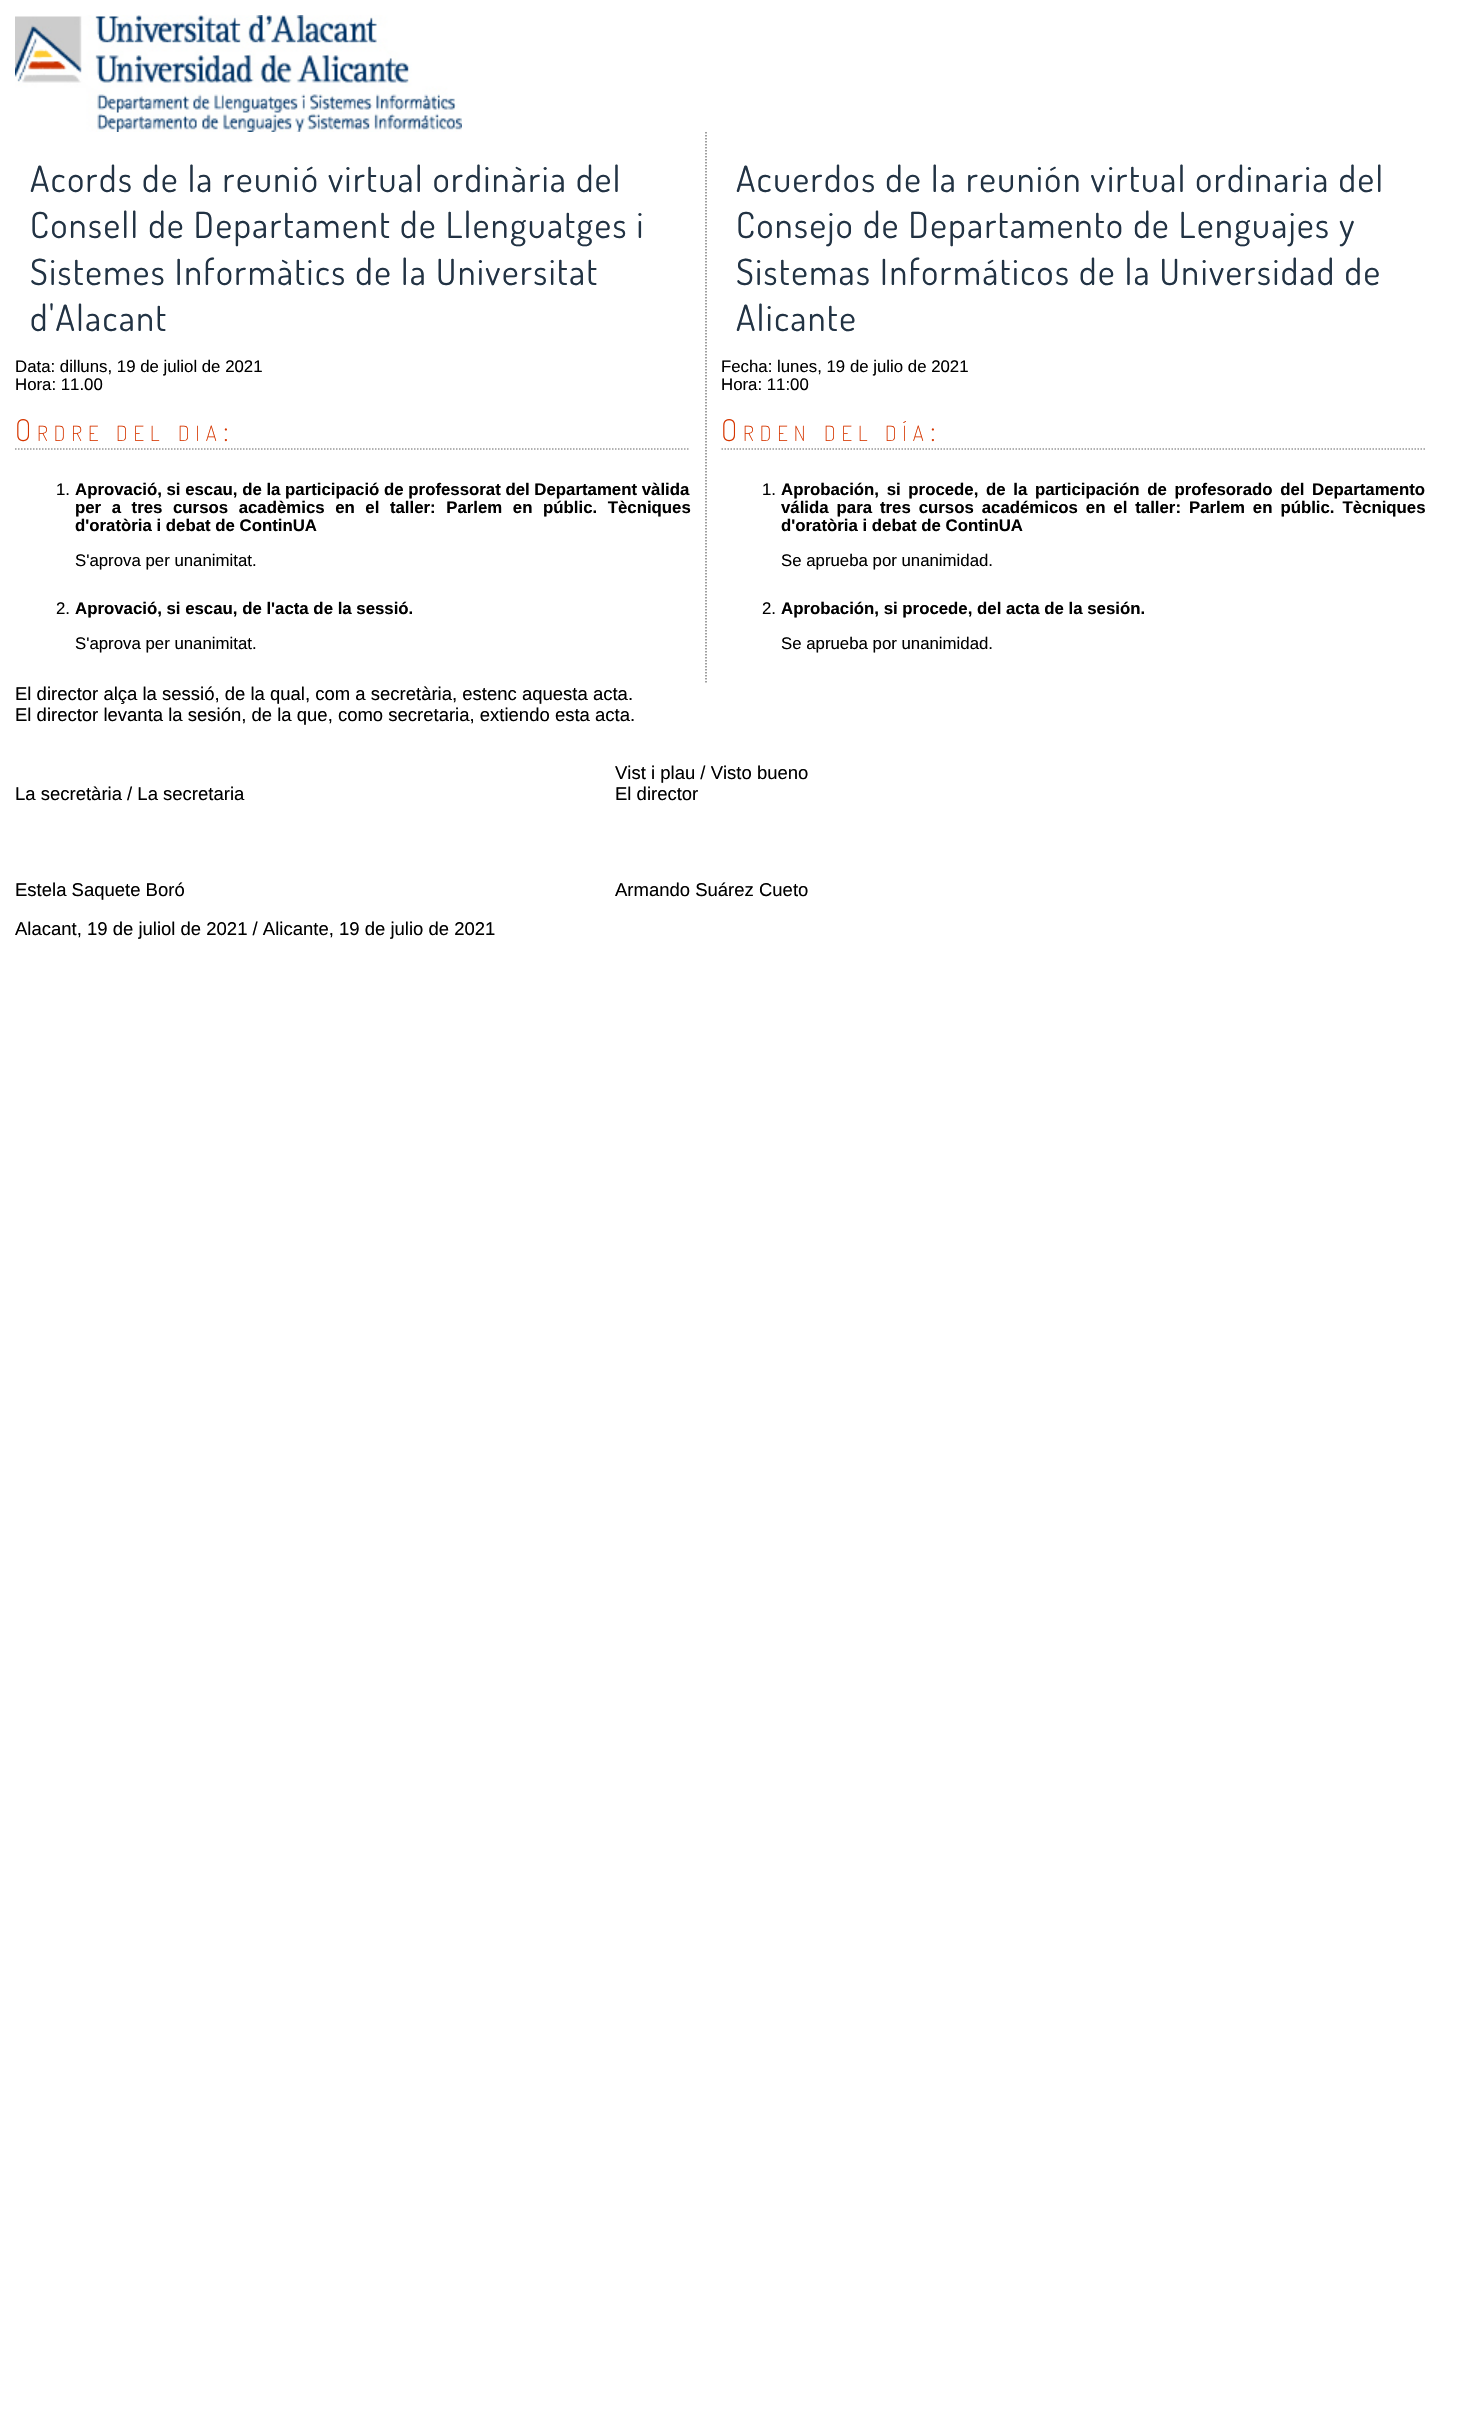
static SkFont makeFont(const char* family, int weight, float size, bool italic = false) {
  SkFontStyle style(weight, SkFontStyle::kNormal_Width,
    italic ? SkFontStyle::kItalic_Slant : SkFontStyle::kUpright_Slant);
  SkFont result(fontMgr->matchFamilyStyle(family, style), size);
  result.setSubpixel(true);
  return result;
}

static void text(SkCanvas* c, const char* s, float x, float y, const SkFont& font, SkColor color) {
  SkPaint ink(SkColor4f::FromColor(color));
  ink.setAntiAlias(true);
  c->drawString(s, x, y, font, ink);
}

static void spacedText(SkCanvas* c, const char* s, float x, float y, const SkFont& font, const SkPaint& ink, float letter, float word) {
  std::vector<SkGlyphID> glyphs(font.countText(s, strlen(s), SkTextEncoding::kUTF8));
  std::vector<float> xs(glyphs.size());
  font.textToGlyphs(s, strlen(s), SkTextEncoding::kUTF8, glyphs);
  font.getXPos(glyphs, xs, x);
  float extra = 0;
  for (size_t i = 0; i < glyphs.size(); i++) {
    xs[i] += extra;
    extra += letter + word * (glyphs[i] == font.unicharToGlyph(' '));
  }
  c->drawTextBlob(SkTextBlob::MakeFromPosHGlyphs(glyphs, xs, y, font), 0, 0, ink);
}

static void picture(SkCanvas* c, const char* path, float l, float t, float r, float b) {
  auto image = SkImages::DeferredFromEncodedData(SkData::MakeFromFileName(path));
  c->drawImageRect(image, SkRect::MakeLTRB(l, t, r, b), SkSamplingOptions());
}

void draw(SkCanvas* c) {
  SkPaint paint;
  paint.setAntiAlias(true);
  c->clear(0xffffffff);
  picture(c, "img_01.png", 15, 15, 462, 132);
  paint.setStyle(SkPaint::kStroke_Style);
  paint.setStrokeWidth(1.5f);
  paint.setColor(0xff808080);
  paint.setPathEffect(SkDashPathEffect::Make({{1.5f, 1.5f}}, 0));
  c->drawPath(SkPathBuilder().moveTo(706, 132).lineTo(706, 684).detach(), paint);
  paint.setPathEffect(nullptr);
  SkFont face1 = makeFont("Dosis", 400, 36);
  paint.setStyle(SkPaint::kFill_Style);
  paint.setColor(0xff223344);
  spacedText(c, "Acords de la reunió virtual ordinària del", 30, 192, face1, paint, 1.5f, 0);
  spacedText(c, "Consell de Departament de Llenguatges i", 30, 238, face1, paint, 1.5f, 0);
  spacedText(c, "Sistemes Informàtics de la Universitat", 30, 285, face1, paint, 1.5f, 0);
  spacedText(c, "d'Alacant", 30, 331, face1, paint, 1.5f, 0);
  SkFont face2 = makeFont("Liberation Sans", 400, 16.8f);
  text(c, "Data: dilluns, 19 de juliol de 2021", 15, 372, face2, 0xff000000);
  text(c, "Hora: 11.00", 15, 390, face2, 0xff000000);
  paint.setStyle(SkPaint::kStroke_Style);
  paint.setColor(0xff999999);
  paint.setPathEffect(SkDashPathEffect::Make({{1.5f, 1.5f}}, 0));
  c->drawPath(SkPathBuilder().moveTo(15, 449).lineTo(690, 449).detach(), paint);
  paint.setPathEffect(nullptr);
  SkFont face3 = makeFont("Dosis", 200, 30);
  paint.setStyle(SkPaint::kFill_Style);
  paint.setColor(0xffd63600);
  spacedText(c, "O", 15, 441, face3, paint, 6, 0);
  SkFont face4 = makeFont("Dosis", 200, 21);
  spacedText(c, "RDRE", 37, 441, face4, paint, 6, 0);
  spacedText(c, "DEL", 116, 441, face4, paint, 6, 0);
  spacedText(c, "DIA", 178, 441, face4, paint, 6, 0);
  spacedText(c, ":", 223, 441, face3, paint, 6, 0);
  text(c, "1.", 56, 495, face2, 0xff000000);
  SkFont face5 = makeFont("Liberation Sans", 700, 16.8f);
  text(c, "Aprovació, si escau, de la participació de professorat del Departament vàlida", 75, 495, face5, 0xff000000);
  paint.setColor(0xff000000);
  spacedText(c, "per a tres cursos acadèmics en el taller: Parlem en públic. Tècniques", 75, 513, face5, paint, 0, 5.9f);
  text(c, "d'oratòria i debat de ContinUA", 75, 531, face5, 0xff000000);
  text(c, "S'aprova per unanimitat.", 75, 566, face2, 0xff000000);
  text(c, "2.", 56, 614, face2, 0xff000000);
  text(c, "Aprovació, si escau, de l'acta de la sessió.", 75, 614, face5, 0xff000000);
  text(c, "S'aprova per unanimitat.", 75, 649, face2, 0xff000000);
  paint.setColor(0xff223344);
  spacedText(c, "Acuerdos de la reunión virtual ordinaria del", 736, 192, face1, paint, 1.5f, 0);
  spacedText(c, "Consejo de Departamento de Lenguajes y", 736, 238, face1, paint, 1.5f, 0);
  spacedText(c, "Sistemas Informáticos de la Universidad de", 736, 285, face1, paint, 1.5f, 0);
  spacedText(c, "Alicante", 736, 331, face1, paint, 1.5f, 0);
  text(c, "Fecha: lunes, 19 de julio de 2021", 721, 372, face2, 0xff000000);
  text(c, "Hora: 11:00", 721, 390, face2, 0xff000000);
  paint.setStyle(SkPaint::kStroke_Style);
  paint.setColor(0xff999999);
  paint.setPathEffect(SkDashPathEffect::Make({{1.5f, 1.5f}}, 0));
  c->drawPath(SkPathBuilder().moveTo(721.5f, 449).lineTo(1426.5f, 449).detach(), paint);
  paint.setPathEffect(nullptr);
  paint.setStyle(SkPaint::kFill_Style);
  paint.setColor(0xffd63600);
  spacedText(c, "O", 721, 441, face3, paint, 6, 0);
  spacedText(c, "RDEN", 743, 441, face4, paint, 6, 0);
  spacedText(c, "DEL", 824, 441, face4, paint, 6, 0);
  spacedText(c, "DÍA", 885, 441, face4, paint, 6, 0);
  spacedText(c, ":", 930, 441, face3, paint, 6, 0);
  text(c, "1.", 762, 495, face2, 0xff000000);
  paint.setColor(0xff000000);
  spacedText(c, "Aprobación, si procede, de la participación de profesorado del Departamento", 781, 495, face5, paint, 0, 3);
  spacedText(c, "válida para tres cursos académicos en el taller: Parlem en públic. Tècniques", 781, 513, face5, paint, 0, 3.25f);
  text(c, "d'oratòria i debat de ContinUA", 781, 531, face5, 0xff000000);
  text(c, "Se aprueba por unanimidad.", 781, 566, face2, 0xff000000);
  text(c, "2.", 762, 614, face2, 0xff000000);
  text(c, "Aprobación, si procede, del acta de la sesión.", 781, 614, face5, 0xff000000);
  text(c, "Se aprueba por unanimidad.", 781, 649, face2, 0xff000000);
  SkFont face6 = makeFont("Liberation Sans", 400, 18.5f);
  text(c, "El director alça la sessió, de la qual, com a secretària, estenc aquesta acta.", 15, 700, face6, 0xff000000);
  text(c, "El director levanta la sesión, de la que, como secretaria, extiendo esta acta.", 15, 721, face6, 0xff000000);
  text(c, "La secretària / La secretaria", 15, 800, face6, 0xff000000);
  text(c, "Estela Saquete Boró", 15, 896, face6, 0xff000000);
  text(c, "Vist i plau / Visto bueno", 615, 779, face6, 0xff000000);
  text(c, "El director", 615, 800, face6, 0xff000000);
  text(c, "Armando Suárez Cueto", 615, 896, face6, 0xff000000);
  text(c, "Alacant, 19 de juliol de 2021 / Alicante, 19 de julio de 2021", 15, 935, face6, 0xff000000);
}
